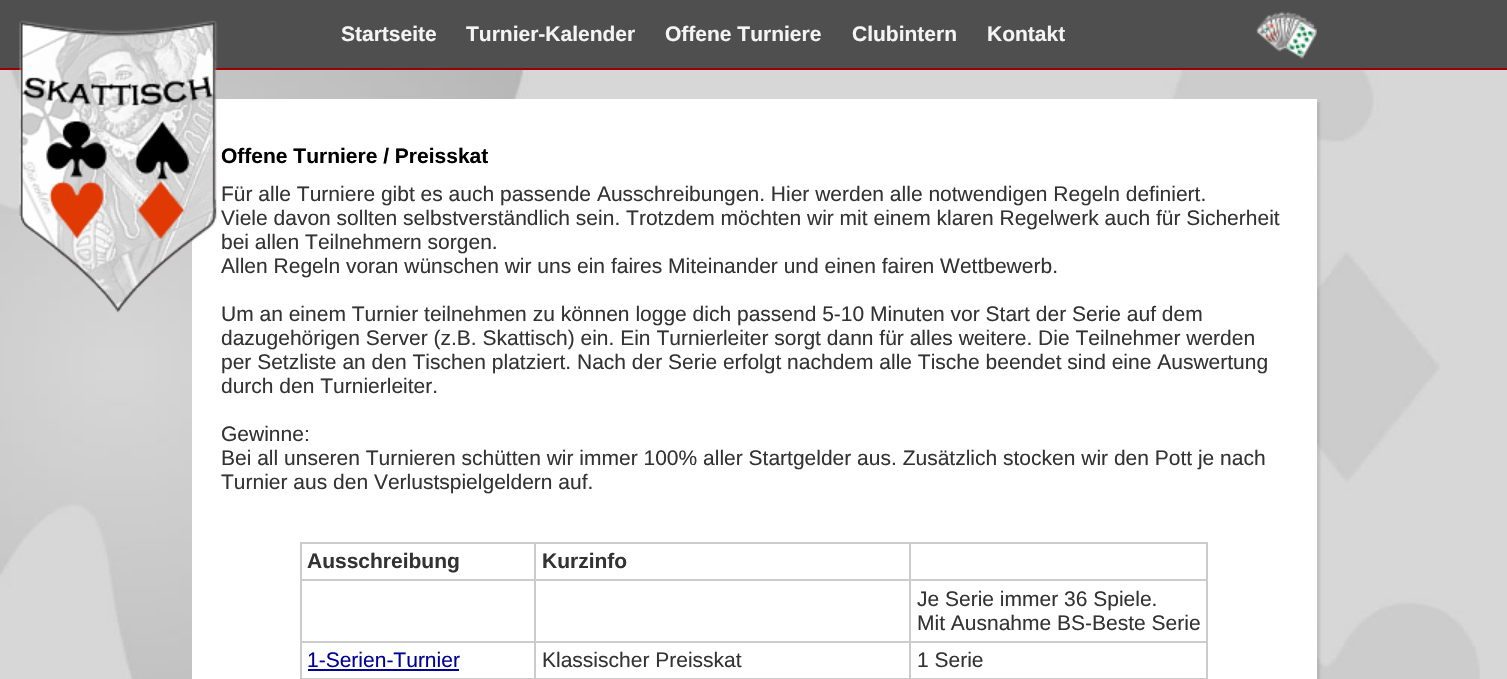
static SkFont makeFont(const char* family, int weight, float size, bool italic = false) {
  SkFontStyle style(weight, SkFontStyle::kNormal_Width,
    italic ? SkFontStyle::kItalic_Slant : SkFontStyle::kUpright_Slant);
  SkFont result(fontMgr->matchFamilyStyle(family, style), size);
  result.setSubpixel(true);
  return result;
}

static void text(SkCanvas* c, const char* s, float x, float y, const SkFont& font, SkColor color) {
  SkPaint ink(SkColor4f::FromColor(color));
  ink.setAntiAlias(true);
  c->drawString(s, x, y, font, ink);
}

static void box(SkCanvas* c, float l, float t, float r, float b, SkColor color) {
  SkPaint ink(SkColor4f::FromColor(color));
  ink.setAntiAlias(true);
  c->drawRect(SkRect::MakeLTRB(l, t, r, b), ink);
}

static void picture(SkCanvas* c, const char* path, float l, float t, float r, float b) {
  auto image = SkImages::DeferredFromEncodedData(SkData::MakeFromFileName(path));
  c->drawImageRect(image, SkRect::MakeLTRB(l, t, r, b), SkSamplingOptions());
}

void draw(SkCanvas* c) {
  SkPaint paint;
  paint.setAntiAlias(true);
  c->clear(0xffd7d7d7);
  picture(c, "img_01.png", 0, 70, 1480, 679);
  box(c, 0, 0, 1507, 68, 0xff4f4f4f);
  box(c, 0, 68, 1507, 70, 0xff990000);
  SkFont face1 = makeFont("Liberation Sans", 700, 21);
  text(c, "Startseite", 341, 41, face1, 0xfff4f4f4);
  text(c, "Turnier-Kalender", 466, 41, face1, 0xfff4f4f4);
  text(c, "Offene Turniere", 665, 41, face1, 0xfff4f4f4);
  text(c, "Clubintern", 852, 41, face1, 0xfff4f4f4);
  text(c, "Kontakt", 987, 41, face1, 0xfff4f4f4);
  picture(c, "img_02.png", 1256, 11, 1317, 59);
  paint.setColor(0x1a000000);
  paint.setMaskFilter(SkMaskFilter::MakeBlur(kNormal_SkBlurStyle, 1));
  c->drawRect(SkRect::MakeLTRB(195, 102, 1320, 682), paint);
  paint.setMaskFilter(nullptr);
  box(c, 192, 99, 1317, 679, 0xffffffff);
  picture(c, "img_03.png", 19, 20, 218, 313);
  text(c, "Offene Turniere / Preisskat", 221, 163, face1, 0xff000000);
  SkFont face2 = makeFont("Liberation Sans", 400, 21);
  text(c, "Für alle Turniere gibt es auch passende Ausschreibungen. Hier werden alle notwendigen Regeln definiert.", 221, 201, face2, 0xff333333);
  text(c, "Viele davon sollten selbstverständlich sein. Trotzdem möchten wir mit einem klaren Regelwerk auch für Sicherheit", 221, 225, face2, 0xff333333);
  text(c, "bei allen Teilnehmern sorgen.", 221, 249, face2, 0xff333333);
  text(c, "Allen Regeln voran wünschen wir uns ein faires Miteinander und einen fairen Wettbewerb.", 221, 273, face2, 0xff333333);
  text(c, "Um an einem Turnier teilnehmen zu können logge dich passend 5-10 Minuten vor Start der Serie auf dem", 221, 321, face2, 0xff333333);
  text(c, "dazugehörigen Server (z.B. Skattisch) ein. Ein Turnierleiter sorgt dann für alles weitere. Die Teilnehmer werden", 221, 345, face2, 0xff333333);
  text(c, "per Setzliste an den Tischen platziert. Nach der Serie erfolgt nachdem alle Tische beendet sind eine Auswertung", 221, 369, face2, 0xff333333);
  text(c, "durch den Turnierleiter.", 221, 393, face2, 0xff333333);
  text(c, "Gewinne:", 221, 441, face2, 0xff333333);
  text(c, "Bei all unseren Turnieren schütten wir immer 100% aller Startgelder aus. Zusätzlich stocken wir den Pott je nach", 221, 465, face2, 0xff333333);
  text(c, "Turnier aus den Verlustspielgeldern auf.", 221, 489, face2, 0xff333333);
  box(c, 909, 542, 1208, 544, 0xffcccccc);
  box(c, 909, 579, 1208, 581, 0xffcccccc);
  box(c, 909, 641, 1208, 643, 0xffcccccc);
  box(c, 300, 678, 1208, 679, 0xffcccccc);
  box(c, 909, 641, 911, 679, 0xffcccccc);
  box(c, 534, 641, 911, 643, 0xffcccccc);
  box(c, 909, 579, 911, 642, 0xffcccccc);
  box(c, 534, 579, 911, 581, 0xffcccccc);
  box(c, 909, 542, 911, 581, 0xffcccccc);
  box(c, 534, 542, 911, 544, 0xffcccccc);
  box(c, 534, 641, 536, 679, 0xffcccccc);
  box(c, 300, 641, 536, 643, 0xffcccccc);
  box(c, 534, 579, 536, 642, 0xffcccccc);
  box(c, 300, 579, 536, 581, 0xffcccccc);
  box(c, 534, 542, 536, 581, 0xffcccccc);
  box(c, 300, 542, 536, 544, 0xffcccccc);
  box(c, 300, 641, 302, 679, 0xffcccccc);
  box(c, 300, 579, 302, 642, 0xffcccccc);
  box(c, 300, 542, 302, 581, 0xffcccccc);
  text(c, "Ausschreibung", 307, 568, face1, 0xff333333);
  text(c, "Kurzinfo", 542, 568, face1, 0xff333333);
  box(c, 1206, 641, 1208, 679, 0xffcccccc);
  box(c, 1206, 579, 1208, 642, 0xffcccccc);
  box(c, 1206, 542, 1208, 581, 0xffcccccc);
  text(c, "Je Serie immer 36 Spiele.", 917, 606, face2, 0xff333333);
  text(c, "Mit Ausnahme BS-Beste Serie", 917, 630, face2, 0xff333333);
  text(c, "1-Serien-Turnier", 307, 667, face2, 0xff000099);
  box(c, 308, 669, 459, 671, 0xff000099);
  text(c, "Klassischer Preisskat", 542, 667, face2, 0xff333333);
  text(c, "1 Serie", 917, 667, face2, 0xff333333);
}
